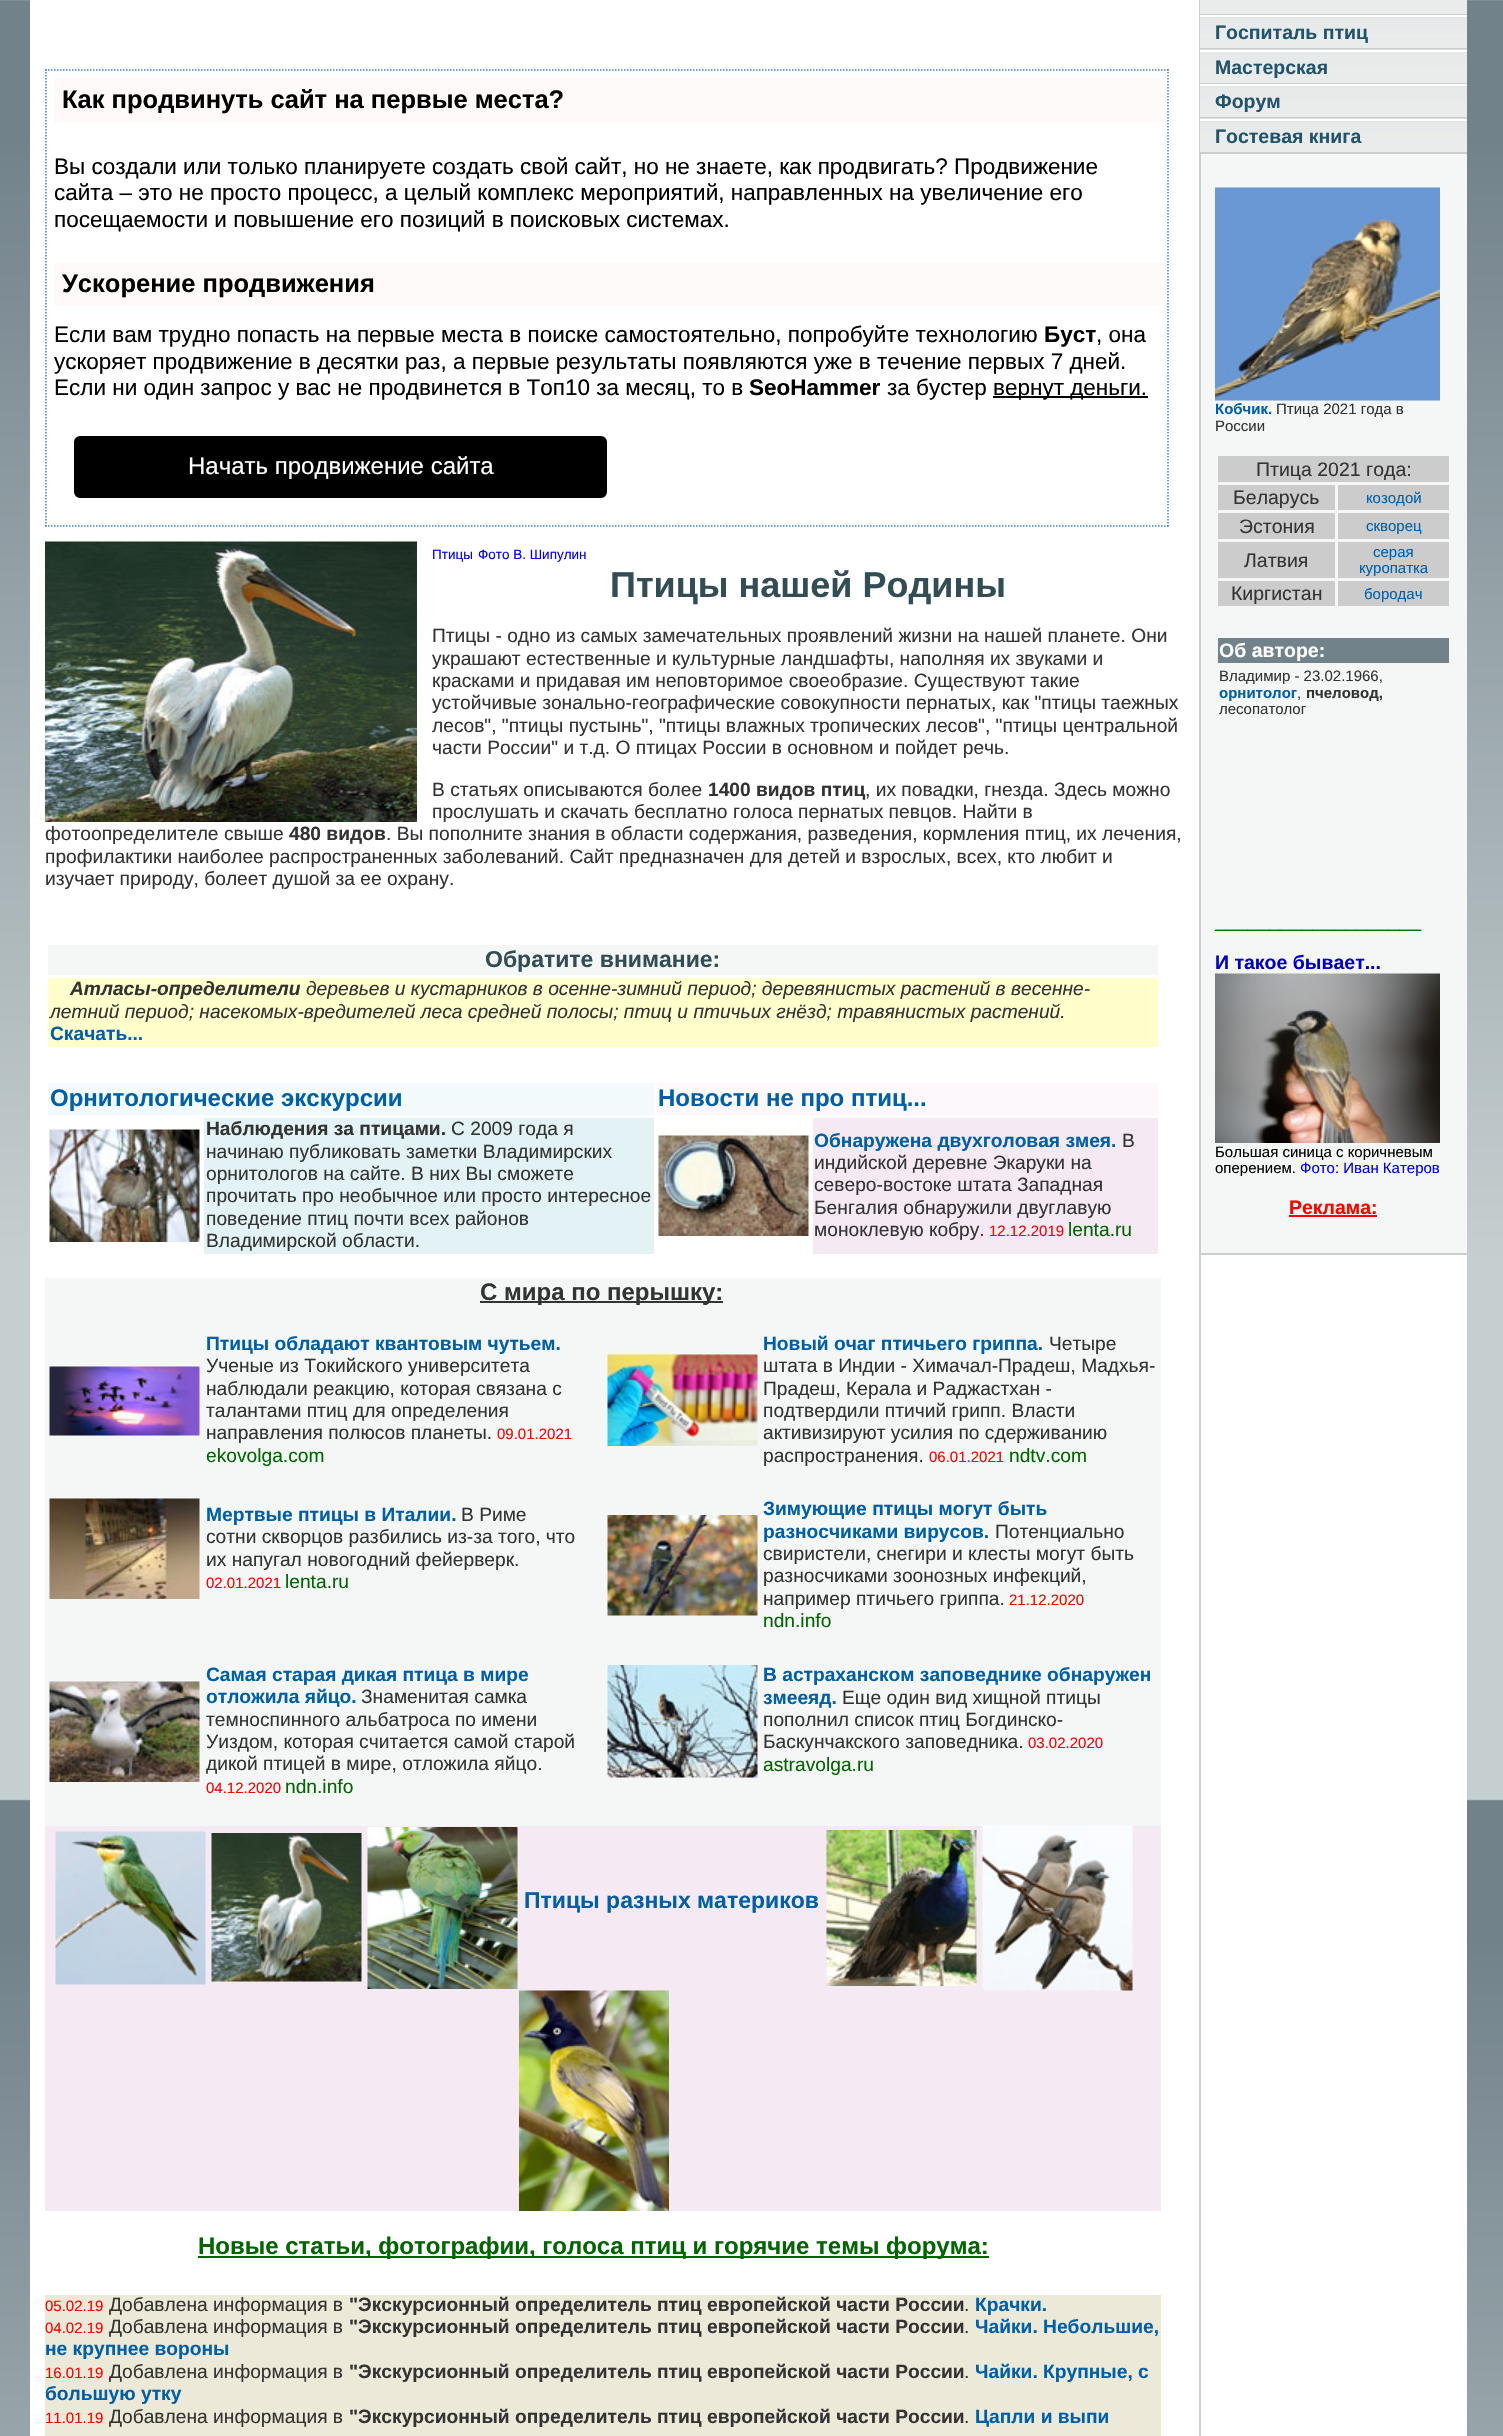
static SkFont makeFont(const char* family, int weight, float size, bool italic = false) {
  SkFontStyle style(weight, SkFontStyle::kNormal_Width,
    italic ? SkFontStyle::kItalic_Slant : SkFontStyle::kUpright_Slant);
  SkFont result(fontMgr->matchFamilyStyle(family, style), size);
  result.setSubpixel(true);
  return result;
}

static void text(SkCanvas* c, const char* s, float x, float y, const SkFont& font, SkColor color) {
  SkPaint ink(SkColor4f::FromColor(color));
  ink.setAntiAlias(true);
  c->drawString(s, x, y, font, ink);
}

static void box(SkCanvas* c, float l, float t, float r, float b, SkColor color) {
  SkPaint ink(SkColor4f::FromColor(color));
  ink.setAntiAlias(true);
  c->drawRect(SkRect::MakeLTRB(l, t, r, b), ink);
}

static void picture(SkCanvas* c, const char* path, float l, float t, float r, float b) {
  auto image = SkImages::DeferredFromEncodedData(SkData::MakeFromFileName(path));
  c->drawImageRect(image, SkRect::MakeLTRB(l, t, r, b), SkSamplingOptions());
}

void draw(SkCanvas* c) {
  SkPaint paint;
  paint.setAntiAlias(true);
  c->clear(0xffffffff);
  picture(c, "img_01.png", 0, 0, 1503, 2436);
  box(c, 30, 0, 1467, 2436, 0xffffffff);
  box(c, 1199, 1255, 1201, 2436, 0xffccd2d2);
  paint.setStyle(SkPaint::kStroke_Style);
  paint.setStrokeWidth(1.5f);
  paint.setColor(0xff4682b4);
  paint.setPathEffect(SkDashPathEffect::Make({{1.5f, 1.5f}}, 0));
  c->drawPath(SkPathBuilder().moveTo(45, 70).lineTo(1168.5f, 70).detach(), paint);
  paint.setPathEffect(nullptr);
  paint.setPathEffect(SkDashPathEffect::Make({{1.5f, 1.5f}}, 0));
  c->drawPath(SkPathBuilder().moveTo(1168, 69).lineTo(1168, 526.5f).detach(), paint);
  paint.setPathEffect(nullptr);
  paint.setPathEffect(SkDashPathEffect::Make({{1.5f, 1.5f}}, 0));
  c->drawPath(SkPathBuilder().moveTo(45, 526).lineTo(1168.5f, 526).detach(), paint);
  paint.setPathEffect(nullptr);
  paint.setPathEffect(SkDashPathEffect::Make({{1.5f, 1.5f}}, 0));
  c->drawPath(SkPathBuilder().moveTo(46, 69).lineTo(46, 526.5f).detach(), paint);
  paint.setPathEffect(nullptr);
  box(c, 54, 78, 1160, 123, 0xfffffafa);
  SkFont face1 = makeFont("Liberation Sans", 700, 25.5f);
  text(c, "Как продвинуть сайт на первые места?", 62, 108, face1, 0xff000000);
  SkFont face2 = makeFont("Liberation Sans", 400, 22.5f);
  text(c, "Вы создали или только планируете создать свой сайт, но не знаете, как продвигать? Продвижение", 54, 174, face2, 0xff000000);
  text(c, "сайта – это не просто процесс, а целый комплекс мероприятий, направленных на увеличение его", 54, 200, face2, 0xff000000);
  text(c, "посещаемости и повышение его позиций в поисковых системах.", 54, 227, face2, 0xff000000);
  box(c, 54, 263, 1160, 306, 0xfffffafa);
  text(c, "Ускорение продвижения", 62, 292, face1, 0xff000000);
  text(c, "Если вам трудно попасть на первые места в поиске самостоятельно, попробуйте технологию", 54, 342, face2, 0xff000000);
  SkFont face3 = makeFont("Liberation Sans", 700, 22.5f);
  text(c, "Буст", 1044, 342, face3, 0xff000000);
  text(c, ", она", 1096, 342, face2, 0xff000000);
  text(c, "ускоряет продвижение в десятки раз, а первые результаты появляются уже в течение первых 7 дней.", 54, 369, face2, 0xff000000);
  text(c, "Если ни один запрос у вас не продвинется в Топ10 за месяц, то в", 54, 395, face2, 0xff000000);
  text(c, "SeoHammer", 749, 395, face3, 0xff000000);
  text(c, "за бустер", 887, 395, face2, 0xff000000);
  box(c, 993, 396, 1148, 398, 0xff000000);
  text(c, "вернут деньги.", 993, 395, face2, 0xff000000);
  paint.setStyle(SkPaint::kFill_Style);
  paint.setColor(0xff000000);
  c->drawRoundRect(SkRect::MakeLTRB(73, 435, 608, 499), 7, 7, paint);
  paint.setStyle(SkPaint::kStroke_Style);
  paint.setStrokeWidth(2);
  paint.setColor(0xffffffff);
  c->drawRoundRect(SkRect::MakeLTRB(73, 435, 608, 499), 7, 7, paint);
  SkFont face4 = makeFont("Liberation Sans", 400, 24);
  text(c, "Начать продвижение сайта", 188, 474, face4, 0xffffffff);
  picture(c, "img_02.png", 45, 541, 417, 822);
  SkFont face5 = makeFont("Liberation Sans", 400, 13.5f);
  text(c, "Птицы", 432, 559, face5, 0xff0000ff);
  text(c, "Фото В. Шипулин", 478, 559, face5, 0xff0000ff);
  SkFont face6 = makeFont("Liberation Sans", 700, 36);
  text(c, "Птицы нашей Родины", 610, 597, face6, 0xff334d55);
  SkFont face7 = makeFont("Liberation Sans", 400, 19.2f);
  text(c, "Птицы - одно из самых замечательных проявлений жизни на нашей планете. Они", 432, 642, face7, 0xff333333);
  text(c, "украшают естественные и культурные ландшафты, наполняя их звуками и", 432, 665, face7, 0xff333333);
  text(c, "красками и придавая им неповторимое своеобразие. Существуют такие", 432, 687, face7, 0xff333333);
  text(c, "устойчивые зонально-географические совокупности пернатых, как \"птицы таежных", 432, 709, face7, 0xff333333);
  text(c, "лесов\", \"птицы пустынь\", \"птицы влажных тропических лесов\", \"птицы центральной", 432, 732, face7, 0xff333333);
  text(c, "части России\" и т.д. О птицах России в основном и пойдет речь.", 432, 754, face7, 0xff333333);
  text(c, "В статьях описываются более", 432, 796, face7, 0xff333333);
  SkFont face8 = makeFont("Liberation Sans", 700, 19.2f);
  text(c, "1400 видов птиц", 708, 796, face8, 0xff333333);
  text(c, ", их повадки, гнезда. Здесь можно", 865, 796, face7, 0xff333333);
  text(c, "прослушать и скачать бесплатно голоса пернатых певцов. Найти в", 432, 818, face7, 0xff333333);
  text(c, "фотоопределителе свыше", 45, 840, face7, 0xff333333);
  text(c, "480 видов", 289, 840, face8, 0xff333333);
  text(c, ". Вы пополните знания в области содержания, разведения, кормления птиц, их лечения,", 386, 840, face7, 0xff333333);
  text(c, "профилактики наиболее распространенных заболеваний. Сайт предназначен для детей и взрослых, всех, кто любит и", 45, 863, face7, 0xff333333);
  text(c, "изучает природу, болеет душой за ее охрану.", 45, 885, face7, 0xff333333);
  box(c, 48, 945, 1158, 975, 0xfff5f7f7);
  SkFont face9 = makeFont("Liberation Sans", 700, 23);
  text(c, "Обратите внимание:", 485, 967, face9, 0xff334d55);
  box(c, 48, 978, 1158, 1047, 0xffffffcc);
  SkFont face10 = makeFont("Liberation Sans", 700, 19.2f, true);
  text(c, "Атласы-определители", 70, 995, face10, 0xff333333);
  SkFont face11 = makeFont("Liberation Sans", 400, 19.2f, true);
  text(c, "деревьев и кустарников в осенне-зимний период; деревянистых растений в весенне-", 306, 995, face11, 0xff333333);
  text(c, "летний период; насекомых-вредителей леса средней полосы; птиц и птичьих гнёзд; травянистых растений.", 50, 1018, face11, 0xff333333);
  text(c, "Скачать...", 50, 1040, face8, 0xff005fa9);
  box(c, 48, 1083, 654, 1115, 0xfff3fafc);
  SkFont face12 = makeFont("Liberation Sans", 700, 24);
  text(c, "Орнитологические экскурсии", 50, 1106, face12, 0xff005fa9);
  box(c, 657, 1083, 1158, 1115, 0xfffcf8fb);
  text(c, "Новости не про птиц...", 658, 1106, face12, 0xff005fa9);
  picture(c, "img_03.png", 49, 1129, 200, 1242);
  box(c, 204, 1118, 654, 1254, 0xffe2f2f5);
  text(c, "Наблюдения за птицами.", 206, 1135, face8, 0xff333333);
  text(c, "С 2009 года я", 451, 1135, face7, 0xff333333);
  text(c, "начинаю публиковать заметки Владимирских", 206, 1158, face7, 0xff333333);
  text(c, "орнитологов на сайте. В них Вы сможете", 206, 1180, face7, 0xff333333);
  text(c, "прочитать про необычное или просто интересное", 206, 1202, face7, 0xff333333);
  text(c, "поведение птиц почти всех районов", 206, 1225, face7, 0xff333333);
  text(c, "Владимирской области.", 206, 1247, face7, 0xff333333);
  picture(c, "img_04.png", 658, 1135, 809, 1236);
  box(c, 813, 1118, 1158, 1254, 0xfff5e9f3);
  text(c, "Обнаружена двухголовая змея.", 814, 1147, face8, 0xff005fa9);
  text(c, "В", 1122, 1147, face7, 0xff333333);
  text(c, "индийской деревне Экаруки на", 814, 1169, face7, 0xff333333);
  text(c, "северо-востоке штата Западная", 814, 1191, face7, 0xff333333);
  text(c, "Бенгалия обнаружили двуглавую", 814, 1214, face7, 0xff333333);
  text(c, "моноклевую кобру.", 814, 1236, face7, 0xff333333);
  SkFont face13 = makeFont("Liberation Sans", 400, 15);
  text(c, "12.12.2019", 989, 1236, face13, 0xffff0000);
  text(c, "lenta.ru", 1068, 1236, face7, 0xff006600);
  box(c, 45, 1278, 1161, 1307, 0xfff5f7f7);
  box(c, 480, 1301, 723, 1303, 0xff333333);
  text(c, "С мира по перышку:", 480, 1300, face12, 0xff333333);
  box(c, 45, 1307, 1161, 1329, 0xfff5f7f7);
  box(c, 45, 1329, 1161, 1472, 0xfff5f7f7);
  picture(c, "img_05.png", 49, 1366, 200, 1436);
  text(c, "Птицы обладают квантовым чутьем.", 206, 1350, face8, 0xff005fa9);
  text(c, "Ученые из Токийского университета", 206, 1372, face7, 0xff333333);
  text(c, "наблюдали реакцию, которая связана с", 206, 1395, face7, 0xff333333);
  text(c, "талантами птиц для определения", 206, 1417, face7, 0xff333333);
  text(c, "направления полюсов планеты.", 206, 1439, face7, 0xff333333);
  text(c, "09.01.2021", 497, 1439, face13, 0xffff0000);
  text(c, "ekovolga.com", 206, 1462, face7, 0xff006600);
  picture(c, "img_06.png", 607, 1354, 758, 1446);
  text(c, "Новый очаг птичьего гриппа.", 763, 1350, face8, 0xff005fa9);
  text(c, "Четыре", 1049, 1350, face7, 0xff333333);
  text(c, "штата в Индии - Химачал-Прадеш, Мадхья-", 763, 1372, face7, 0xff333333);
  text(c, "Прадеш, Керала и Раджастхан -", 763, 1395, face7, 0xff333333);
  text(c, "подтвердили птичий грипп. Власти", 763, 1417, face7, 0xff333333);
  text(c, "активизируют усилия по сдерживанию", 763, 1439, face7, 0xff333333);
  text(c, "распространения.", 763, 1462, face7, 0xff333333);
  text(c, "06.01.2021", 929, 1462, face13, 0xffff0000);
  text(c, "ndtv.com", 1009, 1462, face7, 0xff006600);
  box(c, 45, 1472, 1161, 1494, 0xfff5f7f7);
  box(c, 45, 1494, 1161, 1638, 0xfff5f7f7);
  picture(c, "img_07.png", 49, 1498, 200, 1599);
  text(c, "Мертвые птицы в Италии.", 206, 1521, face8, 0xff005fa9);
  text(c, "В Риме", 461, 1521, face7, 0xff333333);
  text(c, "сотни скворцов разбились из-за того, что", 206, 1543, face7, 0xff333333);
  text(c, "их напугал новогодний фейерверк.", 206, 1566, face7, 0xff333333);
  text(c, "02.01.2021", 206, 1588, face13, 0xffff0000);
  text(c, "lenta.ru", 285, 1588, face7, 0xff006600);
  picture(c, "img_08.png", 607, 1515, 758, 1616);
  text(c, "Зимующие птицы могут быть", 763, 1515, face8, 0xff005fa9);
  text(c, "разносчиками вирусов.", 763, 1538, face8, 0xff005fa9);
  text(c, "Потенциально", 995, 1538, face7, 0xff333333);
  text(c, "свиристели, снегири и клесты могут быть", 763, 1560, face7, 0xff333333);
  text(c, "разносчиками зоонозных инфекций,", 763, 1582, face7, 0xff333333);
  text(c, "например птичьего гриппа.", 763, 1605, face7, 0xff333333);
  text(c, "21.12.2020", 1009, 1605, face13, 0xffff0000);
  text(c, "ndn.info", 763, 1627, face7, 0xff006600);
  box(c, 45, 1638, 1161, 1661, 0xfff5f7f7);
  box(c, 45, 1661, 1161, 1803, 0xfff5f7f7);
  picture(c, "img_09.png", 49, 1681, 200, 1782);
  text(c, "Самая старая дикая птица в мире", 206, 1681, face8, 0xff005fa9);
  text(c, "отложила яйцо.", 206, 1703, face8, 0xff005fa9);
  text(c, "Знаменитая самка", 361, 1703, face7, 0xff333333);
  text(c, "темноспинного альбатроса по имени", 206, 1726, face7, 0xff333333);
  text(c, "Уиздом, которая считается самой старой", 206, 1748, face7, 0xff333333);
  text(c, "дикой птицей в мире, отложила яйцо.", 206, 1770, face7, 0xff333333);
  text(c, "04.12.2020", 206, 1793, face13, 0xffff0000);
  text(c, "ndn.info", 285, 1793, face7, 0xff006600);
  picture(c, "img_10.png", 607, 1665, 758, 1778);
  text(c, "В астраханском заповеднике обнаружен", 763, 1681, face8, 0xff005fa9);
  text(c, "змееяд.", 763, 1704, face8, 0xff005fa9);
  text(c, "Еще один вид хищной птицы", 842, 1704, face7, 0xff333333);
  text(c, "пополнил список птиц Богдинско-", 763, 1726, face7, 0xff333333);
  text(c, "Баскунчакского заповедника.", 763, 1748, face7, 0xff333333);
  text(c, "03.02.2020", 1028, 1748, face13, 0xffff0000);
  text(c, "astravolga.ru", 763, 1771, face7, 0xff006600);
  box(c, 45, 1803, 1161, 1826, 0xfff5f7f7);
  box(c, 45, 1826, 1161, 2211, 0xfff5e9f3);
  picture(c, "img_11.png", 55, 1831, 206, 1985);
  picture(c, "img_12.png", 211, 1833, 362, 1982);
  picture(c, "img_13.png", 367, 1827, 518, 1989);
  text(c, "Птицы разных материков", 524, 1908, face9, 0xff005fa9);
  picture(c, "img_14.png", 826, 1830, 977, 1986);
  picture(c, "img_15.png", 982, 1825, 1133, 1991);
  picture(c, "img_16.png", 519, 1990, 669, 2211);
  box(c, 198, 2256, 989, 2258, 0xff006600);
  text(c, "Новые статьи, фотографии, голоса птиц и горячие темы форума:", 198, 2254, face12, 0xff006600);
  box(c, 45, 2295, 1161, 2436, 0xffece9d8);
  text(c, "05.02.19", 45, 2311, face13, 0xffff0000);
  text(c, "Добавлена информация в", 109, 2311, face7, 0xff333333);
  text(c, "\"Экскурсионный определитель птиц европейской части России", 349, 2311, face8, 0xff333333);
  text(c, ".", 964, 2311, face7, 0xff333333);
  text(c, "Крачки.", 975, 2311, face8, 0xff005fa9);
  text(c, "04.02.19", 45, 2333, face13, 0xffff0000);
  text(c, "Добавлена информация в", 109, 2333, face7, 0xff333333);
  text(c, "\"Экскурсионный определитель птиц европейской части России", 349, 2333, face8, 0xff333333);
  text(c, ".", 964, 2333, face7, 0xff333333);
  text(c, "Чайки. Небольшие,", 975, 2333, face8, 0xff005fa9);
  text(c, "не крупнее вороны", 45, 2355, face8, 0xff005fa9);
  text(c, "16.01.19", 45, 2378, face13, 0xffff0000);
  text(c, "Добавлена информация в", 109, 2378, face7, 0xff333333);
  text(c, "\"Экскурсионный определитель птиц европейской части России", 349, 2378, face8, 0xff333333);
  text(c, ".", 964, 2378, face7, 0xff333333);
  text(c, "Чайки. Крупные, с", 975, 2378, face8, 0xff005fa9);
  text(c, "большую утку", 45, 2400, face8, 0xff005fa9);
  text(c, "11.01.19", 45, 2423, face13, 0xffff0000);
  text(c, "Добавлена информация в", 109, 2423, face7, 0xff333333);
  text(c, "\"Экскурсионный определитель птиц европейской части России", 349, 2423, face8, 0xff333333);
  text(c, ".", 964, 2423, face7, 0xff333333);
  text(c, "Цапли и выпи", 975, 2423, face8, 0xff005fa9);
  box(c, 1201, 154, 1467, 1253, 0xfff5f7f7);
  box(c, 1199, 1253, 1467, 1255, 0xffcccccc);
  box(c, 1199, 0, 1201, 1254, 0xffcccccc);
  box(c, 1200, 0, 1467, 14, 0xffeaecec);
  box(c, 1200, 14, 1467, 15, 0xffcccccc);
  picture(c, "img_17.png", 1200, 17, 1467, 48);
  box(c, 1200, 15, 1201, 17, 0xffffffff);
  box(c, 1200, 48, 1467, 50, 0xffcccccc);
  SkFont face14 = makeFont("Liberation Sans", 700, 19.5f);
  text(c, "Госпиталь птиц", 1215, 39, face14, 0xff21536a);
  picture(c, "img_18.png", 1200, 49, 1467, 83);
  box(c, 1200, 50, 1467, 52, 0xffffffff);
  box(c, 1200, 83, 1467, 84, 0xffcccccc);
  text(c, "Мастерская", 1215, 74, face14, 0xff21536a);
  picture(c, "img_17.png", 1200, 86, 1467, 117);
  box(c, 1200, 84, 1201, 86, 0xffffffff);
  box(c, 1200, 117, 1467, 119, 0xffcccccc);
  text(c, "Форум", 1215, 108, face14, 0xff21536a);
  picture(c, "img_18.png", 1200, 118, 1467, 152);
  box(c, 1200, 119, 1467, 121, 0xffffffff);
  box(c, 1200, 152, 1467, 154, 0xffcccccc);
  text(c, "Гостевая книга", 1215, 143, face14, 0xff21536a);
  picture(c, "img_19.png", 1215, 187, 1440, 401);
  SkFont face15 = makeFont("Liberation Sans", 700, 15);
  text(c, "Кобчик.", 1215, 414, face15, 0xff005fa9);
  text(c, "Птица 2021 года в", 1276, 414, face13, 0xff333333);
  text(c, "России", 1215, 431, face13, 0xff333333);
  box(c, 1218, 456, 1449, 482, 0xffcccccc);
  SkFont face16 = makeFont("Liberation Sans", 400, 19.5f);
  text(c, "Птица 2021 года:", 1256, 476, face16, 0xff333333);
  box(c, 1218, 485, 1335, 510, 0xffcccccc);
  text(c, "Беларусь", 1233, 504, face16, 0xff333333);
  box(c, 1338, 485, 1449, 510, 0xffcccccc);
  text(c, "козодой", 1366, 503, face13, 0xff005fa9);
  box(c, 1218, 513, 1335, 539, 0xffcccccc);
  text(c, "Эстония", 1239, 533, face16, 0xff333333);
  box(c, 1338, 513, 1449, 539, 0xffcccccc);
  text(c, "скворец", 1366, 531, face13, 0xff005fa9);
  box(c, 1218, 542, 1335, 578, 0xffcccccc);
  text(c, "Латвия", 1244, 567, face16, 0xff333333);
  box(c, 1338, 542, 1449, 578, 0xffcccccc);
  text(c, "серая", 1373, 557, face13, 0xff005fa9);
  text(c, "куропатка", 1359, 573, face13, 0xff005fa9);
  box(c, 1218, 581, 1335, 606, 0xffcccccc);
  text(c, "Киргистан", 1231, 600, face16, 0xff333333);
  box(c, 1338, 581, 1449, 606, 0xffcccccc);
  text(c, "бородач", 1364, 599, face13, 0xff005fa9);
  box(c, 1218, 638, 1449, 663, 0xff71828a);
  text(c, "Об авторе:", 1219, 657, face14, 0xffffffff);
  text(c, "Владимир - 23.02.1966,", 1219, 681, face13, 0xff333333);
  text(c, "орнитолог", 1219, 698, face15, 0xff005fa9);
  text(c, ",", 1297, 698, face13, 0xff333333);
  text(c, "пчеловод,", 1306, 698, face15, 0xff333333);
  text(c, "лесопатолог", 1219, 714, face13, 0xff333333);
  text(c, "___________________", 1215, 927, face16, 0xff006600);
  text(c, "И такое бывает...", 1215, 969, face14, 0xff0000cc);
  picture(c, "img_20.png", 1215, 973, 1440, 1143);
  text(c, "Большая синица с коричневым", 1215, 1157, face13, 0xff000000);
  text(c, "оперением.", 1215, 1173, face13, 0xff000000);
  text(c, "Фото: Иван Катеров", 1300, 1173, face13, 0xff0000ff);
  text(c, "Реклама:", 1289, 1214, face14, 0xffff0000);
  box(c, 1289, 1215, 1377, 1217, 0xffff0000);
}
